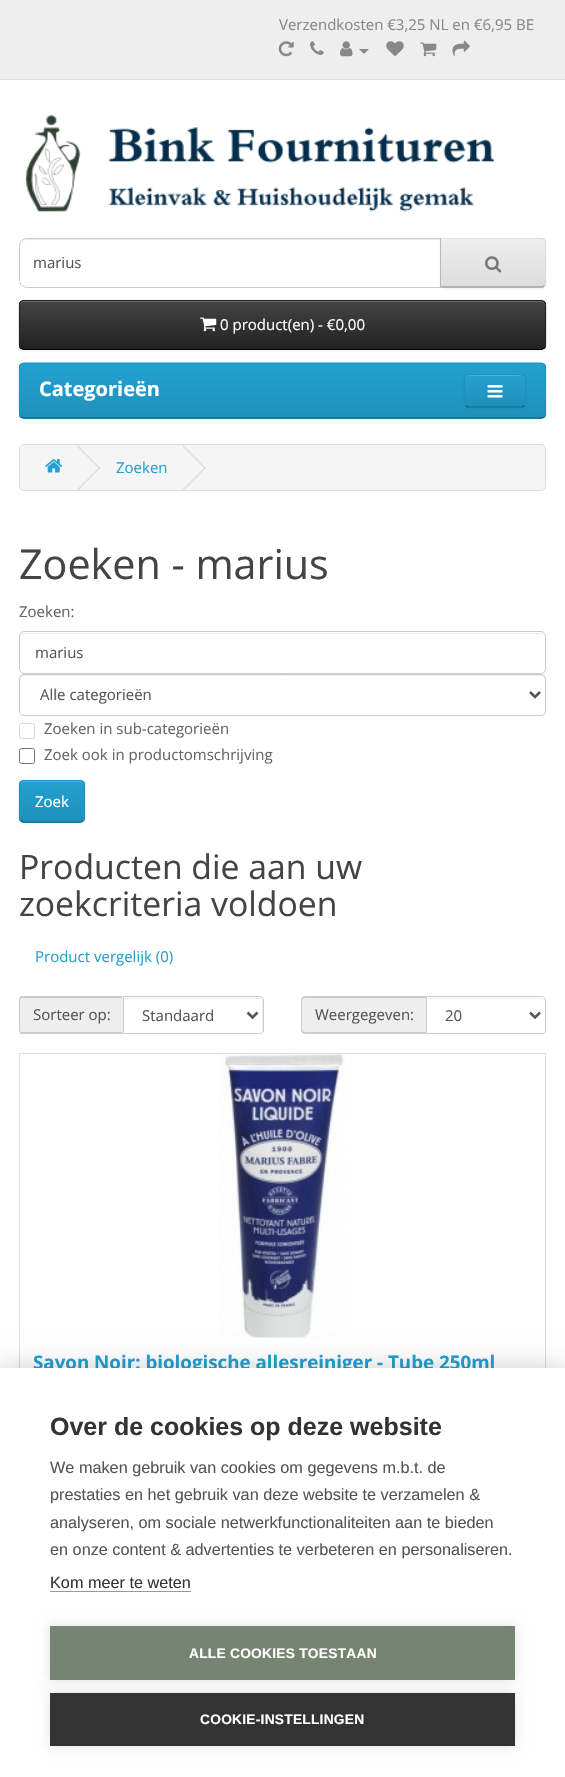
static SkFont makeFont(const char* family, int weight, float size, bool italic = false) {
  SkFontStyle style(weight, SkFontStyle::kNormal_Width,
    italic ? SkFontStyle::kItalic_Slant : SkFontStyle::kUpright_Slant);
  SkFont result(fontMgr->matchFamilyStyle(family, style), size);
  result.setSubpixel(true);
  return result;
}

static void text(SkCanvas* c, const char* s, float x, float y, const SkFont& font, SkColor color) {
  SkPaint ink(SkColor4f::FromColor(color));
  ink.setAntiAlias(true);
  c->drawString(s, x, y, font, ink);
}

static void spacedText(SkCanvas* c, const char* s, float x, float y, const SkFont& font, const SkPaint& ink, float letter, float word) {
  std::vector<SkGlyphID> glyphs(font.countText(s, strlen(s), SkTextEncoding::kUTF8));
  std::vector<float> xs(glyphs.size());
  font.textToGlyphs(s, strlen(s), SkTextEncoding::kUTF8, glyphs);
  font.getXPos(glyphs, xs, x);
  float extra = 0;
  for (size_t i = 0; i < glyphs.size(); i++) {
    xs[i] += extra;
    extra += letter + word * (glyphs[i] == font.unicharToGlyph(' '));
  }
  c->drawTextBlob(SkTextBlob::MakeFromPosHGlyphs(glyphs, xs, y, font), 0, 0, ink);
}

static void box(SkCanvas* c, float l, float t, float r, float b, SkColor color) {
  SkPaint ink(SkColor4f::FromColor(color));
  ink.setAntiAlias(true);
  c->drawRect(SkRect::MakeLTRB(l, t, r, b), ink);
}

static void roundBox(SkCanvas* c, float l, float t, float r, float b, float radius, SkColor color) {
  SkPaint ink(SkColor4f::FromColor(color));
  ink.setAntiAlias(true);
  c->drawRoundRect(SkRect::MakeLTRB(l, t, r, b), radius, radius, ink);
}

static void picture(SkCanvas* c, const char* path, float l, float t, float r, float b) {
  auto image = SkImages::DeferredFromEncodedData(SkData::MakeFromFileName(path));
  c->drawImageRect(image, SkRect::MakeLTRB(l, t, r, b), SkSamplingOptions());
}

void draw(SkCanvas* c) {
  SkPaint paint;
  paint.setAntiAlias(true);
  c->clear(0xffffffff);
  box(c, 0, 0, 565, 79, 0xffeeeeee);
  box(c, 0, 79, 565, 80, 0xffe2e2e2);
  SkFont face1 = makeFont("Open Sans", 400, 15);
  text(c, "Verzendkosten €3,25 NL en €6,95 BE", 279, 30, face1, 0xff888888);
  picture(c, "img_01.png", 278, 41, 294, 57);
  picture(c, "img_02.png", 310, 41, 324, 55);
  picture(c, "img_03.png", 340, 41, 353, 57);
  paint.setColor(0xff888888);
  c->drawPath(SkPathBuilder().moveTo(359, 49).lineTo(369, 49).lineTo(364, 54).close().detach(), paint);
  picture(c, "img_04.png", 386, 41, 404, 57);
  picture(c, "img_05.png", 420, 42, 437, 57);
  picture(c, "img_06.png", 452, 40, 470, 57);
  picture(c, "img_07.png", 25, 114, 494, 212);
  paint.setColor(0xffececec);
  c->drawPath(SkPathBuilder().moveTo(26, 240).lineTo(440, 240).lineTo(440, 239).lineTo(26, 239).cubicTo(23, 239, 20, 242, 20, 245).lineTo(20, 246).cubicTo(20, 243, 23, 240, 26, 240).close().detach(), paint);
  paint.setStyle(SkPaint::kStroke_Style);
  paint.setStrokeWidth(1);
  paint.setColor(0xffcccccc);
  c->drawPath(SkPathBuilder().moveTo(27, 238.5f).lineTo(440.5f, 238.5f).lineTo(440.5f, 287.5f).lineTo(27, 287.5f).cubicTo(23, 287.5f, 19.5f, 284, 19.5f, 280).lineTo(19.5f, 246).cubicTo(19.5f, 242, 23, 238.5f, 27, 238.5f).close().detach(), paint);
  text(c, "marius", 33, 268, face1, 0xff555555);
  paint.setStyle(SkPaint::kFill_Style);
  paint.setColor(0x0d000000);
  paint.setMaskFilter(SkMaskFilter::MakeBlur(kNormal_SkBlurStyle, 1));
  c->drawRoundRect(SkRect::MakeLTRB(440, 239, 546, 289), 5, 5, paint);
  paint.setMaskFilter(nullptr);
  c->save();
  c->clipPath(SkPathBuilder().moveTo(440, 238).lineTo(541, 238).cubicTo(544, 238, 546, 240, 546, 243).lineTo(546, 283).cubicTo(546, 286, 544, 288, 541, 288).lineTo(440, 288).close().detach(), true);
  {
    const SkColor colors[] = {0xffeeeeee, 0xffdddddd};
    const float stops[] = {0, 1};
    const SkPoint ends[] = {{493, 239}, {493, 286}};
    paint.setShader(SkGradientShader::MakeLinear(ends, colors, stops, 2, SkTileMode::kClamp));
    paint.setAlpha(255);
  }
  c->drawRect(SkRect::MakeLTRB(441, 239, 546, 286), paint);
  c->restore();
  paint.setShader(nullptr);
  paint.setColor(0xfff1f1f1);
  c->drawPath(SkPathBuilder().moveTo(441, 240).lineTo(541, 240).cubicTo(543, 240, 545, 242, 545, 244).lineTo(545, 243).cubicTo(545, 241, 543, 239, 541, 239).lineTo(441, 239).close().detach(), paint);
  paint.setColor(0xffdddddd);
  c->drawPath(SkPathBuilder().moveTo(545, 239).cubicTo(544, 238, 542, 238, 541, 238).lineTo(440, 238).lineTo(442, 239).lineTo(541, 239).lineTo(544, 240).close().detach(), paint);
  c->drawPath(SkPathBuilder().moveTo(545, 239).lineTo(546, 242).lineTo(546, 275).cubicTo(546, 278, 547, 283, 545, 286).lineTo(544, 285).cubicTo(546, 283, 545, 277, 545, 275).lineTo(545, 242).lineTo(544, 240).close().detach(), paint);
  paint.setColor(0xffb3b3b3);
  c->drawPath(SkPathBuilder().moveTo(543, 288).lineTo(440, 288).lineTo(442, 286).lineTo(542, 286).lineTo(544, 285).lineTo(545, 286).close().detach(), paint);
  paint.setColor(0xffb7b7b7);
  c->drawPath(SkPathBuilder().moveTo(441, 239).lineTo(442, 239).lineTo(440, 238).lineTo(440, 288).lineTo(442, 286).lineTo(441, 286).close().detach(), paint);
  picture(c, "img_08.png", 485, 256, 502, 273);
  paint.setColor(0x0d000000);
  paint.setMaskFilter(SkMaskFilter::MakeBlur(kNormal_SkBlurStyle, 1));
  c->drawRoundRect(SkRect::MakeLTRB(19, 301, 546, 351), 5, 5, paint);
  paint.setMaskFilter(nullptr);
  roundBox(c, 19, 300, 546, 350, 5, 0xff363636);
  c->save();
  c->clipPath(SkPathBuilder().moveTo(24, 300).lineTo(541, 300).cubicTo(544, 300, 546, 302, 546, 305).lineTo(546, 345).cubicTo(546, 348, 544, 350, 541, 350).lineTo(24, 350).cubicTo(21, 350, 19, 348, 19, 345).lineTo(19, 305).cubicTo(19, 302, 21, 300, 24, 300).close().detach(), true);
  {
    const SkColor colors[] = {0xff444444, 0xff222222};
    const float stops[] = {0, 1};
    const SkPoint ends[] = {{283, 301}, {283, 349}};
    paint.setShader(SkGradientShader::MakeLinear(ends, colors, stops, 2, SkTileMode::kClamp));
    paint.setAlpha(255);
  }
  c->drawRect(SkRect::MakeLTRB(19, 301, 546, 349), paint);
  c->restore();
  paint.setShader(nullptr);
  paint.setColor(0xff696969);
  c->drawPath(SkPathBuilder().moveTo(24, 302).lineTo(541, 302).cubicTo(543, 302, 545, 304, 545, 306).lineTo(545, 305).cubicTo(545, 303, 543, 301, 541, 301).lineTo(24, 301).cubicTo(22, 301, 20, 303, 20, 305).lineTo(20, 306).cubicTo(20, 304, 22, 302, 24, 302).close().detach(), paint);
  paint.setStyle(SkPaint::kStroke_Style);
  paint.setStrokeWidth(1.2f);
  paint.setColor(0xff000000);
  c->drawPath(SkPathBuilder().moveTo(544.5f, 348).lineTo(541, 349.5f).lineTo(24, 349.5f).lineTo(20.5f, 348).detach(), paint);
  paint.setColor(0xff222222);
  c->drawPath(SkPathBuilder().moveTo(20.5f, 348).cubicTo(20, 347.5f, 19.5f, 346, 19.5f, 345).lineTo(19.5f, 305).cubicTo(19.5f, 304, 20, 302.5f, 20.5f, 302).cubicTo(21.5f, 301, 22.5f, 300.5f, 24, 300.5f).lineTo(541, 300.5f).cubicTo(542.5f, 300.5f, 543.5f, 301, 544.5f, 302).cubicTo(545, 302.5f, 545.5f, 304, 545.5f, 305).lineTo(545.5f, 345).cubicTo(545.5f, 346, 545, 347.5f, 544.5f, 348).detach(), paint);
  picture(c, "img_09.png", 200, 317, 217, 332);
  text(c, "0 product(en) - €0,00", 220, 330, face1, 0xffffffff);
  roundBox(c, 19, 363, 546, 419, 5, 0xff229ac8);
  c->save();
  c->clipPath(SkPathBuilder().moveTo(24, 363).lineTo(541, 363).cubicTo(544, 363, 546, 365, 546, 368).lineTo(546, 414).cubicTo(546, 417, 544, 419, 541, 419).lineTo(24, 419).cubicTo(21, 419, 19, 417, 19, 414).lineTo(19, 368).cubicTo(19, 365, 21, 363, 24, 363).close().detach(), true);
  paint.setStyle(SkPaint::kFill_Style);
  {
    const SkColor colors[] = {0xff23a1d1, 0xff1f90bb};
    const float stops[] = {0, 1};
    const SkPoint ends[] = {{283, 364}, {283, 418}};
    paint.setShader(SkGradientShader::MakeLinear(ends, colors, stops, 2, SkTileMode::kClamp));
    paint.setAlpha(255);
  }
  c->drawRect(SkRect::MakeLTRB(19, 364, 546, 418), paint);
  c->restore();
  paint.setStyle(SkPaint::kStroke_Style);
  paint.setShader(nullptr);
  paint.setColor(0xff145e7a);
  c->drawPath(SkPathBuilder().moveTo(544.5f, 417).lineTo(541, 418).lineTo(24, 418).lineTo(20.5f, 417).detach(), paint);
  paint.setColor(0xff1f90bb);
  c->drawPath(SkPathBuilder().moveTo(20.5f, 417).cubicTo(20, 416, 19.5f, 415, 19.5f, 414).lineTo(19.5f, 367.5f).cubicTo(19.5f, 366.5f, 20, 365, 20.5f, 364.5f).cubicTo(21.5f, 363.5f, 22.5f, 363, 24, 363).lineTo(541, 363).cubicTo(542.5f, 363, 543.5f, 363.5f, 544.5f, 364.5f).cubicTo(545, 365, 545.5f, 366.5f, 545.5f, 367.5f).lineTo(545.5f, 414).cubicTo(545.5f, 415, 545, 416, 544.5f, 417).detach(), paint);
  SkFont face2 = makeFont("Open Sans", 700, 20);
  text(c, "Categorieën", 39, 396, face2, 0xffffffff);
  paint.setStyle(SkPaint::kFill_Style);
  paint.setColor(0x0d000000);
  paint.setMaskFilter(SkMaskFilter::MakeBlur(kNormal_SkBlurStyle, 1));
  c->drawRoundRect(SkRect::MakeLTRB(464, 375, 526, 409), 5, 5, paint);
  paint.setMaskFilter(nullptr);
  roundBox(c, 464, 374, 526, 408, 5, 0xff229ac8);
  c->save();
  c->clipPath(SkPathBuilder().moveTo(469, 374).lineTo(521, 374).cubicTo(524, 374, 526, 376, 526, 379).lineTo(526, 403).cubicTo(526, 406, 524, 408, 521, 408).lineTo(469, 408).cubicTo(466, 408, 464, 406, 464, 403).lineTo(464, 379).cubicTo(464, 376, 466, 374, 469, 374).close().detach(), true);
  {
    const SkColor colors[] = {0xff23a1d1, 0xff1f90bb};
    const float stops[] = {0, 1};
    const SkPoint ends[] = {{495, 375}, {495, 406}};
    paint.setShader(SkGradientShader::MakeLinear(ends, colors, stops, 2, SkTileMode::kClamp));
    paint.setAlpha(255);
  }
  c->drawRect(SkRect::MakeLTRB(464, 375, 526, 406), paint);
  c->restore();
  paint.setShader(nullptr);
  paint.setColor(0xff4fb4da);
  c->drawPath(SkPathBuilder().moveTo(469, 376).lineTo(521, 376).cubicTo(523, 376, 525, 378, 525, 380).cubicTo(525, 373, 517, 375, 512, 375).lineTo(478, 375).cubicTo(473, 375, 465, 373, 465, 380).cubicTo(465, 378, 467, 376, 469, 376).close().detach(), paint);
  paint.setStyle(SkPaint::kStroke_Style);
  paint.setColor(0xff145e7a);
  c->drawPath(SkPathBuilder().moveTo(524.5f, 405.5f).cubicTo(523.5f, 406.5f, 522.5f, 407, 521, 407).lineTo(469, 407).cubicTo(467.5f, 407, 466.5f, 406.5f, 465.5f, 405.5f).detach(), paint);
  paint.setColor(0xff1f90bb);
  c->drawPath(SkPathBuilder().moveTo(465.5f, 405.5f).cubicTo(463, 403, 464.5f, 394, 464.5f, 390.5f).cubicTo(464.5f, 374.5f, 461.5f, 374.5f, 477.5f, 374.5f).lineTo(512.5f, 374.5f).cubicTo(528.5f, 374.5f, 525.5f, 374.5f, 525.5f, 390.5f).cubicTo(525.5f, 394, 527, 403, 524.5f, 405.5f).detach(), paint);
  picture(c, "img_10.png", 487, 385, 503, 398);
  paint.setStyle(SkPaint::kFill_Style);
  paint.setColor(0xfff5f5f5);
  c->drawRoundRect(SkRect::MakeLTRB(19.5f, 444.5f, 545.5f, 490.5f), 4.5f, 4.5f, paint);
  paint.setStyle(SkPaint::kStroke_Style);
  paint.setStrokeWidth(1);
  paint.setColor(0xffdddddd);
  c->drawRoundRect(SkRect::MakeLTRB(19.5f, 444.5f, 545.5f, 490.5f), 4.5f, 4.5f, paint);
  picture(c, "img_11.png", 45, 459, 63, 473);
  paint.setStyle(SkPaint::kFill_Style);
  c->drawPath(SkPathBuilder().moveTo(76.5f, 446).lineTo(77.5f, 445).lineTo(100.5f, 468).lineTo(99.5f, 469).close().detach(), paint);
  c->drawPath(SkPathBuilder().moveTo(76.5f, 490).lineTo(99.5f, 467).lineTo(100.5f, 468).lineTo(77.5f, 491).close().detach(), paint);
  text(c, "Zoeken", 116, 473, face1, 0xff23a1d1);
  c->drawPath(SkPathBuilder().moveTo(182, 446).lineTo(183, 445).lineTo(206, 468).lineTo(205, 469).close().detach(), paint);
  c->drawPath(SkPathBuilder().moveTo(182, 490).lineTo(205, 467).lineTo(206, 468).lineTo(183, 491).close().detach(), paint);
  SkFont face3 = makeFont("Open Sans", 400, 41.25f);
  text(c, "Zoeken - marius", 19, 579, face3, 0xff444444);
  text(c, "Zoeken:", 19, 617, face1, 0xff666666);
  paint.setColor(0xffececec);
  c->drawPath(SkPathBuilder().moveTo(24, 634).lineTo(541, 634).cubicTo(543, 634, 545, 635, 545, 638).lineTo(545, 637).cubicTo(545, 635, 543, 633, 541, 633).lineTo(24, 633).cubicTo(22, 633, 20, 635, 20, 637).lineTo(20, 638).cubicTo(20, 635, 22, 634, 24, 634).close().detach(), paint);
  paint.setStyle(SkPaint::kStroke_Style);
  paint.setColor(0xffcccccc);
  c->drawRoundRect(SkRect::MakeLTRB(19.5f, 631.5f, 545.5f, 673.5f), 4.5f, 4.5f, paint);
  text(c, "marius", 35, 658, face1, 0xff555555);
  paint.setStyle(SkPaint::kFill_Style);
  paint.setColor(0xffececec);
  c->drawPath(SkPathBuilder().moveTo(24, 676).lineTo(541, 676).cubicTo(543, 676, 545, 678, 545, 680).lineTo(545, 679).cubicTo(545, 677, 543, 675, 541, 675).lineTo(24, 675).cubicTo(22, 675, 20, 677, 20, 679).lineTo(20, 680).cubicTo(20, 678, 22, 676, 24, 676).close().detach(), paint);
  paint.setStyle(SkPaint::kStroke_Style);
  paint.setColor(0xffcccccc);
  c->drawRoundRect(SkRect::MakeLTRB(19.5f, 674.5f, 545.5f, 715.5f), 4.5f, 4.5f, paint);
  paint.setStrokeWidth(2.5f);
  paint.setColor(0xff555555);
  c->drawPath(SkPathBuilder().moveTo(530, 692).lineTo(535, 697).lineTo(540, 692).detach(), paint);
  text(c, "Alle categorieën", 40, 700, face1, 0xff555555);
  paint.setStrokeWidth(1);
  paint.setColor(0xffd6d6d6);
  c->drawRoundRect(SkRect::MakeLTRB(19.5f, 723.5f, 34.5f, 738.5f), 2, 2, paint);
  text(c, "Zoeken in sub-categorieën", 44, 734, face1, 0xff666666);
  paint.setColor(0xff767676);
  c->drawRoundRect(SkRect::MakeLTRB(19.5f, 748.5f, 34.5f, 763.5f), 2, 2, paint);
  text(c, "Zoek ook in productomschrijving", 44, 760, face1, 0xff666666);
  paint.setStyle(SkPaint::kFill_Style);
  paint.setColor(0x0d000000);
  paint.setMaskFilter(SkMaskFilter::MakeBlur(kNormal_SkBlurStyle, 1));
  c->drawRoundRect(SkRect::MakeLTRB(19, 781, 85, 824), 5, 5, paint);
  paint.setMaskFilter(nullptr);
  roundBox(c, 19, 780, 85, 823, 5, 0xff229ac8);
  c->save();
  c->clipPath(SkPathBuilder().moveTo(24, 780).lineTo(80, 780).cubicTo(83, 780, 85, 782, 85, 785).lineTo(85, 818).cubicTo(85, 821, 83, 823, 80, 823).lineTo(24, 823).cubicTo(21, 823, 19, 821, 19, 818).lineTo(19, 785).cubicTo(19, 782, 21, 780, 24, 780).close().detach(), true);
  {
    const SkColor colors[] = {0xff23a1d1, 0xff1f90bb};
    const float stops[] = {0, 1};
    const SkPoint ends[] = {{52, 781}, {52, 821}};
    paint.setShader(SkGradientShader::MakeLinear(ends, colors, stops, 2, SkTileMode::kClamp));
    paint.setAlpha(255);
  }
  c->drawRect(SkRect::MakeLTRB(19, 781, 85, 821), paint);
  c->restore();
  paint.setShader(nullptr);
  paint.setColor(0xff4fb4da);
  c->drawPath(SkPathBuilder().moveTo(24, 782).lineTo(80, 782).cubicTo(82, 782, 84, 784, 84, 786).cubicTo(84, 779, 76, 781, 71, 781).lineTo(33, 781).cubicTo(28, 781, 20, 779, 20, 786).cubicTo(20, 784, 22, 782, 24, 782).close().detach(), paint);
  paint.setStyle(SkPaint::kStroke_Style);
  paint.setStrokeWidth(1.2f);
  paint.setColor(0xff145e7a);
  c->drawPath(SkPathBuilder().moveTo(83, 820.5f).cubicTo(82.5f, 821.5f, 81, 822, 80, 822).lineTo(24, 822).cubicTo(22.5f, 822, 21.5f, 821.5f, 20.5f, 820.5f).detach(), paint);
  paint.setColor(0xff1f90bb);
  c->drawPath(SkPathBuilder().moveTo(20.5f, 820.5f).cubicTo(20, 820, 19.5f, 818.5f, 19.5f, 817.5f).lineTo(19.5f, 785).cubicTo(19.5f, 784, 20, 782.5f, 20.5f, 782).cubicTo(21.5f, 781, 22.5f, 780.5f, 24, 780.5f).lineTo(80, 780.5f).cubicTo(81, 780.5f, 82.5f, 781, 83, 782).cubicTo(84, 782.5f, 84.5f, 784, 84.5f, 785).lineTo(84.5f, 817.5f).cubicTo(84.5f, 818.5f, 84, 820, 83, 820.5f).detach(), paint);
  text(c, "Zoek", 35, 807, face1, 0xffffffff);
  SkFont face4 = makeFont("Open Sans", 400, 33.75f);
  text(c, "Producten die aan uw", 19, 879, face4, 0xff444444);
  text(c, "zoekcriteria voldoen", 19, 916, face4, 0xff444444);
  text(c, "Product vergelijk (0)", 35, 962, face1, 0xff23a1d1);
  paint.setStyle(SkPaint::kFill_Style);
  paint.setColor(0xffeeeeee);
  c->drawPath(SkPathBuilder().moveTo(23, 996).lineTo(123, 996).lineTo(123, 1034).lineTo(23, 1034).cubicTo(21, 1034, 19, 1032, 19, 1030).lineTo(19, 1000).cubicTo(19, 998, 21, 996, 23, 996).close().detach(), paint);
  paint.setColor(0xffcccccc);
  c->drawPath(SkPathBuilder(SkPathFillType::kEvenOdd).moveTo(22, 996).lineTo(122, 996).lineTo(122, 1034).lineTo(22, 1034).cubicTo(20, 1034, 19, 1032, 19, 1030).lineTo(19, 1000).cubicTo(19, 998, 20, 996, 22, 996).close().moveTo(22, 998).lineTo(122, 998).lineTo(122, 1032).lineTo(22, 1032).cubicTo(21, 1032, 20, 1031, 20, 1030).lineTo(20, 1000).cubicTo(20, 999, 21, 998, 22, 998).close().detach(), paint);
  text(c, "Sorteer op:", 33, 1020, face1, 0xff555555);
  paint.setColor(0xffececec);
  c->drawPath(SkPathBuilder().moveTo(124, 999).lineTo(260, 999).cubicTo(261, 999, 262, 1000, 262, 1001).lineTo(262, 1033).lineTo(263, 1031).lineTo(263, 1000).lineTo(261, 998).lineTo(124, 998).close().detach(), paint);
  paint.setStyle(SkPaint::kStroke_Style);
  paint.setStrokeWidth(1);
  paint.setColor(0xffcccccc);
  c->drawPath(SkPathBuilder().moveTo(123.5f, 996.5f).lineTo(260, 996.5f).cubicTo(262, 996.5f, 263.5f, 998, 263.5f, 1000).lineTo(263.5f, 1030).cubicTo(263.5f, 1032, 262, 1033.5f, 260, 1033.5f).lineTo(123.5f, 1033.5f).close().detach(), paint);
  paint.setStrokeWidth(2.5f);
  paint.setColor(0xff555555);
  c->drawPath(SkPathBuilder().moveTo(247.5f, 1012.5f).lineTo(252.5f, 1017.5f).lineTo(257.5f, 1012.5f).detach(), paint);
  text(c, "Standaard", 142, 1021, face1, 0xff555555);
  paint.setStyle(SkPaint::kFill_Style);
  paint.setColor(0xffeeeeee);
  c->drawPath(SkPathBuilder().moveTo(305, 996).lineTo(426, 996).lineTo(426, 1034).lineTo(305, 1034).cubicTo(303, 1034, 301, 1032, 301, 1030).lineTo(301, 1000).cubicTo(301, 998, 303, 996, 305, 996).close().detach(), paint);
  paint.setColor(0xffcccccc);
  c->drawPath(SkPathBuilder(SkPathFillType::kEvenOdd).moveTo(305, 996).lineTo(426, 996).lineTo(426, 1034).lineTo(305, 1034).cubicTo(303, 1034, 301, 1032, 301, 1030).lineTo(301, 1000).cubicTo(301, 998, 303, 996, 305, 996).close().moveTo(305, 998).lineTo(426, 998).lineTo(426, 1032).lineTo(305, 1032).cubicTo(304, 1032, 302, 1031, 302, 1030).lineTo(302, 1000).cubicTo(302, 999, 304, 998, 305, 998).close().detach(), paint);
  text(c, "Weergegeven:", 315, 1020, face1, 0xff555555);
  paint.setColor(0xffececec);
  c->drawPath(SkPathBuilder().moveTo(428, 999).lineTo(542, 999).lineTo(545, 1000).lineTo(545, 1001).cubicTo(545, 1000, 545, 999, 543, 998).lineTo(428, 998).close().detach(), paint);
  paint.setStyle(SkPaint::kStroke_Style);
  paint.setStrokeWidth(1);
  paint.setColor(0xffcccccc);
  c->drawPath(SkPathBuilder().moveTo(426.5f, 996.5f).lineTo(542, 996.5f).cubicTo(544, 996.5f, 545.5f, 998, 545.5f, 1000).lineTo(545.5f, 1030).cubicTo(545.5f, 1032, 544, 1033.5f, 542, 1033.5f).lineTo(426.5f, 1033.5f).close().detach(), paint);
  paint.setStrokeWidth(2.5f);
  paint.setColor(0xff555555);
  c->drawPath(SkPathBuilder().moveTo(530, 1012.5f).lineTo(535, 1017.5f).lineTo(540, 1012.5f).detach(), paint);
  text(c, "20", 445, 1021, face1, 0xff555555);
  paint.setStrokeWidth(1);
  paint.setColor(0xffdddddd);
  c->drawRect(SkRect::MakeLTRB(19.5f, 1053.5f, 545.5f, 1535.5f), paint);
  picture(c, "img_12.png", 219, 1054, 345, 1339);
  SkFont face5 = makeFont("Open Sans", 700, 18.75f);
  text(c, "Savon Noir: biologische allesreiniger - Tube 250ml", 33, 1369, face5, 0xff23a1d1);
  paint.setStyle(SkPaint::kFill_Style);
  paint.setColor(0x33000000);
  paint.setMaskFilter(SkMaskFilter::MakeBlur(kNormal_SkBlurStyle, 12.5f));
  c->drawRect(SkRect::MakeLTRB(0, 1368, 565, 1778), paint);
  paint.setMaskFilter(nullptr);
  box(c, 0, 1368, 565, 1777, 0xffffffff);
  SkFont face6 = makeFont("Liberation Sans", 700, 25);
  text(c, "Over de cookies op deze website", 50, 1435, face6, 0xff333333);
  SkFont face7 = makeFont("Liberation Sans", 400, 16.25f);
  text(c, "We maken gebruik van cookies om gegevens m.b.t. de", 50, 1473, face7, 0xff555555);
  text(c, "prestaties en het gebruik van deze website te verzamelen &", 50, 1500, face7, 0xff555555);
  text(c, "analyseren, om sociale netwerkfunctionaliteiten aan te bieden", 50, 1528, face7, 0xff555555);
  text(c, "en onze content & advertenties te verbeteren en personaliseren.", 50, 1555, face7, 0xff555555);
  text(c, "Kom meer te weten", 50, 1588, face7, 0xff333333);
  box(c, 50, 1591, 191, 1592, 0xff999999);
  paint.setColor(0x1f000000);
  paint.setMaskFilter(SkMaskFilter::MakeBlur(kNormal_SkBlurStyle, 6));
  c->drawRect(SkRect::MakeLTRB(50, 1626, 515, 1680), paint);
  paint.setMaskFilter(nullptr);
  box(c, 50, 1626, 515, 1680, 0xff768572);
  SkFont face8 = makeFont("Liberation Sans", 700, 13.75f);
  paint.setColor(0xffffffff);
  spacedText(c, "ALLE COOKIES TOESTAAN", 189, 1658, face8, paint, 0.25f, 0);
  paint.setColor(0x1f000000);
  paint.setMaskFilter(SkMaskFilter::MakeBlur(kNormal_SkBlurStyle, 6));
  c->drawRect(SkRect::MakeLTRB(50, 1693, 515, 1746), paint);
  paint.setMaskFilter(nullptr);
  box(c, 50, 1693, 515, 1746, 0xff333333);
  paint.setColor(0xffffffff);
  spacedText(c, "COOKIE-INSTELLINGEN", 200, 1724, face8, paint, 0.25f, 0);
}
